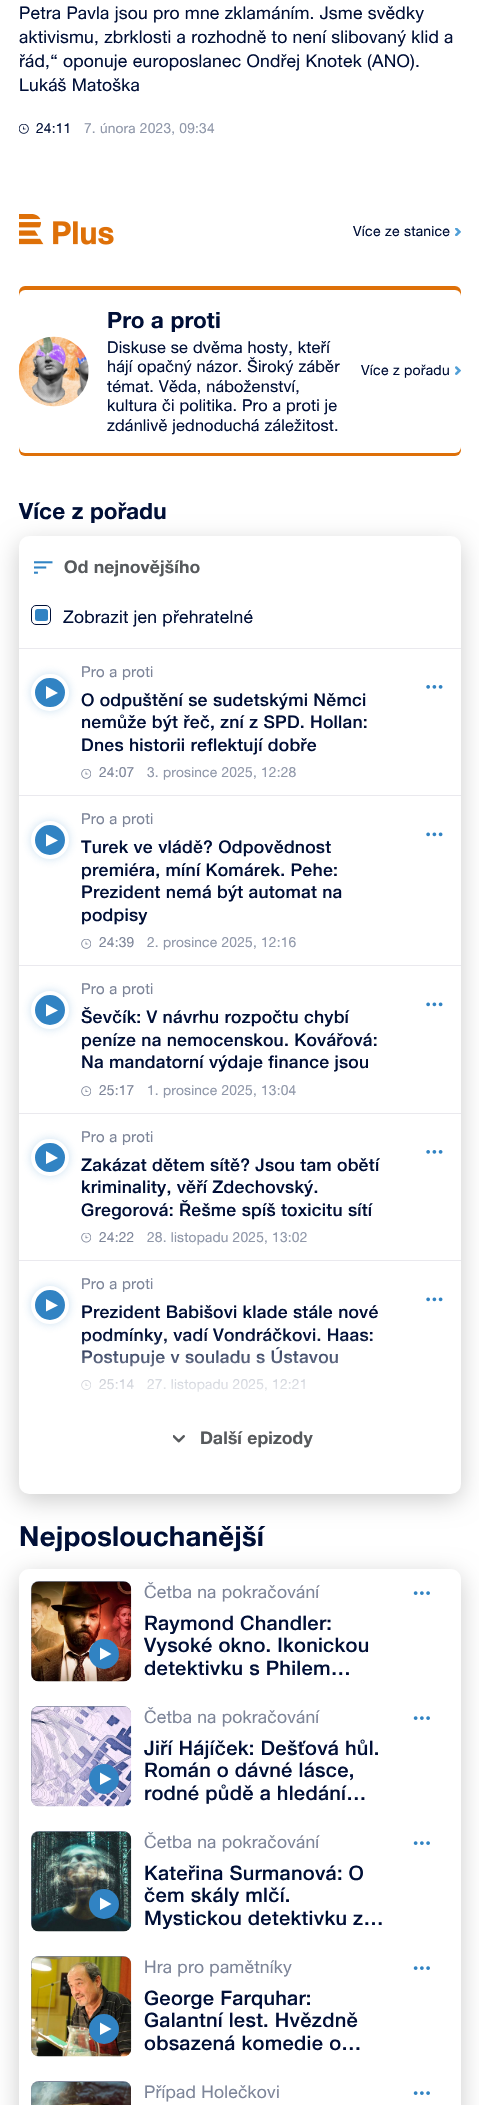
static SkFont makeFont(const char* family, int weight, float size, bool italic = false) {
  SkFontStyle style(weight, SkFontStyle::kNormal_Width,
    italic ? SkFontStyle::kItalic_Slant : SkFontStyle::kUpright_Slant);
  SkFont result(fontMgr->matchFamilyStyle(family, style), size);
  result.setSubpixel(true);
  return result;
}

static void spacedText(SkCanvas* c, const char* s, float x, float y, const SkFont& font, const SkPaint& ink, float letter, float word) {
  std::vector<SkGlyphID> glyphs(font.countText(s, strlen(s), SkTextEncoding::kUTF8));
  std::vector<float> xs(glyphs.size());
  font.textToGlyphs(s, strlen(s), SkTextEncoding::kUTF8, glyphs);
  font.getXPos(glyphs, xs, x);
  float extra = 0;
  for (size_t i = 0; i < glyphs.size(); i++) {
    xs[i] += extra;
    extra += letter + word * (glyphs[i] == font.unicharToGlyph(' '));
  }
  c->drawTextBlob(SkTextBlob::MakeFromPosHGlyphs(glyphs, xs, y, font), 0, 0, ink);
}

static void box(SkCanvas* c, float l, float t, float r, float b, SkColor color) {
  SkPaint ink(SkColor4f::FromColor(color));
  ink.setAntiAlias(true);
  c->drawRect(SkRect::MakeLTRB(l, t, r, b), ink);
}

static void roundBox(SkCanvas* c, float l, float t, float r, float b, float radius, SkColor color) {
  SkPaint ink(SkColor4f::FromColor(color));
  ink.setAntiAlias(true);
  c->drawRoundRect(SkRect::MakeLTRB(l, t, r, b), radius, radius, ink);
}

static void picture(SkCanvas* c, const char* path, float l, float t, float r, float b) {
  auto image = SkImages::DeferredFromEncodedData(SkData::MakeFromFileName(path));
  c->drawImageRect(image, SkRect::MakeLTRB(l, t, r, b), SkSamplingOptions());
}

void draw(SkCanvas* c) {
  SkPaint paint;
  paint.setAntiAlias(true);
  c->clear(0xffffffff);
  SkFont face1 = makeFont("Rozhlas", 400, 17.5f);
  paint.setColor(0xff000f37);
  spacedText(c, "Petra Pavla jsou pro mne zklamáním. Jsme svědky", 19, 19, face1, paint, 0.23f, 0);
  spacedText(c, "aktivismu, zbrklosti a rozhodně to není slibovaný klid a", 19, 43, face1, paint, 0.23f, 0);
  spacedText(c, "řád,“ oponuje europoslanec Ondřej Knotek (ANO).", 19, 67, face1, paint, 0.23f, 0);
  spacedText(c, "Lukáš Matoška", 19, 91, face1, paint, 0.23f, 0);
  picture(c, "img_01.png", 19, 124, 29, 134);
  SkFont face2 = makeFont("Rozhlas", 400, 13.75f);
  spacedText(c, "24:11", 36, 133, face2, paint, 0.2f, 0);
  paint.setColor(0xff8f97a9);
  spacedText(c, "7. února 2023, 09:34", 84, 133, face2, paint, 0.2f, 0);
  picture(c, "img_02.png", 19, 214, 114, 245);
  SkFont face3 = makeFont("Rozhlas", 400, 14);
  paint.setColor(0xff000f37);
  spacedText(c, "Více ze stanice", 353, 236, face3, paint, 0.25f, 0);
  picture(c, "img_03.png", 455, 228, 461, 236);
  roundBox(c, 19, 286, 461, 456, 6, 0xffde7008);
  roundBox(c, 19, 290, 461, 453, 6, 0xffffffff);
  picture(c, "img_04.png", 18, 336, 89, 407);
  SkFont face4 = makeFont("Rozhlas", 700, 22.5f);
  spacedText(c, "Pro a proti", 107, 328, face4, paint, 0.25f, 0);
  SkFont face5 = makeFont("Rozhlas", 400, 16.3f);
  spacedText(c, "Diskuse se dvěma hosty, kteří", 107, 353, face5, paint, 0.2f, 0);
  spacedText(c, "hájí opačný názor. Široký záběr", 107, 372, face5, paint, 0.2f, 0);
  spacedText(c, "témat. Věda, náboženství,", 107, 392, face5, paint, 0.2f, 0);
  spacedText(c, "kultura či politika. Pro a proti je", 107, 411, face5, paint, 0.2f, 0);
  spacedText(c, "zdánlivě jednoduchá záležitost.", 107, 431, face5, paint, 0.2f, 0);
  spacedText(c, "Více z pořadu", 361, 375, face3, paint, 0.25f, 0);
  picture(c, "img_05.png", 455, 366, 461, 375);
  paint.setColor(0x33000000);
  paint.setMaskFilter(SkMaskFilter::MakeBlur(kNormal_SkBlurStyle, 12.5f));
  c->drawRoundRect(SkRect::MakeLTRB(19, 543, 461, 1500), 10, 10, paint);
  paint.setMaskFilter(nullptr);
  paint.setColor(0xff000f37);
  spacedText(c, "Více z pořadu", 19, 519, face4, paint, 0.25f, 0);
  roundBox(c, 19, 536, 461, 1494, 10, 0xffffffff);
  box(c, 19, 648, 461, 649, 0xffeae9ee);
  picture(c, "img_06.png", 34, 561, 53, 574);
  SkFont face6 = makeFont("Rozhlas", 700, 17.5f);
  paint.setColor(0xff575a5d);
  spacedText(c, "Od nejnovějšího", 64, 573, face6, paint, 0.23f, 0);
  paint.setStyle(SkPaint::kStroke_Style);
  paint.setStrokeWidth(1);
  paint.setColor(0xff000f37);
  c->drawRoundRect(SkRect::MakeLTRB(31.5f, 605.5f, 50.5f, 624.5f), 4.5f, 4.5f, paint);
  roundBox(c, 35, 609, 48, 621, 2.5f, 0xff3183c3);
  paint.setStyle(SkPaint::kFill_Style);
  spacedText(c, "Zobrazit jen přehratelné", 63, 623, face1, paint, 0.23f, 0);
  box(c, 19, 795, 461, 796, 0xffeae9ee);
  paint.setColor(0x403183c3);
  paint.setMaskFilter(SkMaskFilter::MakeBlur(kNormal_SkBlurStyle, 5));
  c->drawRoundRect(SkRect::MakeLTRB(31, 674, 69, 711), 18.5f, 18.5f, paint);
  paint.setMaskFilter(nullptr);
  paint.setColor(0xff3183c3);
  c->drawRoundRect(SkRect::MakeLTRB(33, 676, 67, 709), 16.5f, 16.5f, paint);
  paint.setStyle(SkPaint::kStroke_Style);
  paint.setStrokeWidth(4);
  paint.setColor(0xffffffff);
  c->drawRoundRect(SkRect::MakeLTRB(33, 676, 67, 709), 16.5f, 16.5f, paint);
  paint.setStyle(SkPaint::kFill_Style);
  c->drawPath(SkPathBuilder().moveTo(46, 699).lineTo(46, 686).lineTo(58, 693).close().detach(), paint);
  SkFont face7 = makeFont("Rozhlas", 400, 15);
  paint.setColor(0xff7d8599);
  spacedText(c, "Pro a proti", 81, 677, face7, paint, 0.25f, 0);
  SkFont face8 = makeFont("Rozhlas", 500, 17.5f);
  paint.setColor(0xff000f37);
  spacedText(c, "O odpuštění se sudetskými Němci", 81, 706, face8, paint, 0.23f, 0);
  spacedText(c, "nemůže být řeč, zní z SPD. Hollan:", 81, 728, face8, paint, 0.23f, 0);
  spacedText(c, "Dnes historii reflektují dobře", 81, 751, face8, paint, 0.23f, 0);
  picture(c, "img_07.png", 81, 769, 91, 779);
  paint.setColor(0xff7d8599);
  spacedText(c, "24:07", 99, 777, face2, paint, 0.2f, 0);
  paint.setColor(0xff8f97a9);
  spacedText(c, "3. prosince 2025, 12:28", 147, 777, face2, paint, 0.2f, 0);
  picture(c, "img_08.png", 426, 685, 443, 689);
  box(c, 19, 965, 461, 966, 0xffeae9ee);
  paint.setColor(0x403183c3);
  paint.setMaskFilter(SkMaskFilter::MakeBlur(kNormal_SkBlurStyle, 5));
  c->drawRoundRect(SkRect::MakeLTRB(31, 821, 69, 859), 19, 19, paint);
  paint.setMaskFilter(nullptr);
  paint.setColor(0xff3183c3);
  c->drawCircle(50, 840, 17, paint);
  paint.setStyle(SkPaint::kStroke_Style);
  paint.setColor(0xffffffff);
  c->drawCircle(50, 840, 17, paint);
  paint.setStyle(SkPaint::kFill_Style);
  c->drawPath(SkPathBuilder().moveTo(46, 846.5f).lineTo(46, 834).lineTo(58, 840.5f).close().detach(), paint);
  paint.setColor(0xff7d8599);
  spacedText(c, "Pro a proti", 81, 824, face7, paint, 0.25f, 0);
  paint.setColor(0xff000f37);
  spacedText(c, "Turek ve vládě? Odpovědnost", 81, 853, face8, paint, 0.23f, 0);
  spacedText(c, "premiéra, míní Komárek. Pehe:", 81, 876, face8, paint, 0.23f, 0);
  spacedText(c, "Prezident nemá být automat na", 81, 898, face8, paint, 0.23f, 0);
  spacedText(c, "podpisy", 81, 921, face8, paint, 0.23f, 0);
  picture(c, "img_07.png", 81, 939, 91, 949);
  paint.setColor(0xff7d8599);
  spacedText(c, "24:39", 99, 947, face2, paint, 0.2f, 0);
  paint.setColor(0xff8f97a9);
  spacedText(c, "2. prosince 2025, 12:16", 147, 947, face2, paint, 0.2f, 0);
  picture(c, "img_09.png", 426, 832, 443, 837);
  box(c, 19, 1113, 461, 1114, 0xffeae9ee);
  paint.setColor(0x403183c3);
  paint.setMaskFilter(SkMaskFilter::MakeBlur(kNormal_SkBlurStyle, 5));
  c->drawRoundRect(SkRect::MakeLTRB(31, 991, 69, 1029), 19, 19, paint);
  paint.setMaskFilter(nullptr);
  paint.setColor(0xff3183c3);
  c->drawCircle(50, 1010, 17, paint);
  paint.setStyle(SkPaint::kStroke_Style);
  paint.setColor(0xffffffff);
  c->drawCircle(50, 1010, 17, paint);
  paint.setStyle(SkPaint::kFill_Style);
  c->drawPath(SkPathBuilder().moveTo(46, 1016.5f).lineTo(46, 1004).lineTo(58, 1010.5f).close().detach(), paint);
  paint.setColor(0xff7d8599);
  spacedText(c, "Pro a proti", 81, 994, face7, paint, 0.25f, 0);
  paint.setColor(0xff000f37);
  spacedText(c, "Ševčík: V návrhu rozpočtu chybí", 81, 1023, face8, paint, 0.23f, 0);
  spacedText(c, "peníze na nemocenskou. Kovářová:", 81, 1046, face8, paint, 0.23f, 0);
  spacedText(c, "Na mandatorní výdaje finance jsou", 81, 1068, face8, paint, 0.23f, 0);
  picture(c, "img_10.png", 81, 1086, 91, 1096);
  paint.setColor(0xff7d8599);
  spacedText(c, "25:17", 99, 1095, face2, paint, 0.2f, 0);
  paint.setColor(0xff8f97a9);
  spacedText(c, "1. prosince 2025, 13:04", 147, 1095, face2, paint, 0.2f, 0);
  picture(c, "img_09.png", 426, 1002, 443, 1007);
  box(c, 19, 1260, 461, 1261, 0xffeae9ee);
  paint.setColor(0x403183c3);
  paint.setMaskFilter(SkMaskFilter::MakeBlur(kNormal_SkBlurStyle, 5));
  c->drawRoundRect(SkRect::MakeLTRB(31, 1139, 69, 1176), 18.5f, 18.5f, paint);
  paint.setMaskFilter(nullptr);
  paint.setColor(0xff3183c3);
  c->drawRoundRect(SkRect::MakeLTRB(33, 1141, 67, 1174), 16.5f, 16.5f, paint);
  paint.setStyle(SkPaint::kStroke_Style);
  paint.setColor(0xffffffff);
  c->drawRoundRect(SkRect::MakeLTRB(33, 1141, 67, 1174), 16.5f, 16.5f, paint);
  paint.setStyle(SkPaint::kFill_Style);
  c->drawPath(SkPathBuilder().moveTo(46, 1164).lineTo(46, 1151).lineTo(58, 1158).close().detach(), paint);
  paint.setColor(0xff7d8599);
  spacedText(c, "Pro a proti", 81, 1142, face7, paint, 0.25f, 0);
  paint.setColor(0xff000f37);
  spacedText(c, "Zakázat dětem sítě? Jsou tam obětí", 81, 1171, face8, paint, 0.23f, 0);
  spacedText(c, "kriminality, věří Zdechovský.", 81, 1193, face8, paint, 0.23f, 0);
  spacedText(c, "Gregorová: Řešme spíš toxicitu sítí", 81, 1216, face8, paint, 0.23f, 0);
  picture(c, "img_11.png", 81, 1233, 91, 1243);
  paint.setColor(0xff7d8599);
  spacedText(c, "24:22", 99, 1242, face2, paint, 0.2f, 0);
  paint.setColor(0xff8f97a9);
  spacedText(c, "28. listopadu 2025, 13:02", 147, 1242, face2, paint, 0.2f, 0);
  picture(c, "img_08.png", 426, 1150, 443, 1154);
  paint.setColor(0x403183c3);
  paint.setMaskFilter(SkMaskFilter::MakeBlur(kNormal_SkBlurStyle, 5));
  c->drawRoundRect(SkRect::MakeLTRB(31, 1286, 69, 1324), 19, 19, paint);
  paint.setMaskFilter(nullptr);
  paint.setColor(0xff3183c3);
  c->drawCircle(50, 1305, 17, paint);
  paint.setStyle(SkPaint::kStroke_Style);
  paint.setColor(0xffffffff);
  c->drawCircle(50, 1305, 17, paint);
  paint.setStyle(SkPaint::kFill_Style);
  c->drawPath(SkPathBuilder().moveTo(46, 1311.5f).lineTo(46, 1299).lineTo(58, 1305.5f).close().detach(), paint);
  paint.setColor(0xff7d8599);
  spacedText(c, "Pro a proti", 81, 1289, face7, paint, 0.25f, 0);
  paint.setColor(0xff000f37);
  spacedText(c, "Prezident Babišovi klade stále nové", 81, 1318, face8, paint, 0.23f, 0);
  spacedText(c, "podmínky, vadí Vondráčkovi. Haas:", 81, 1341, face8, paint, 0.23f, 0);
  spacedText(c, "Postupuje v souladu s Ústavou", 81, 1363, face8, paint, 0.23f, 0);
  picture(c, "img_12.png", 81, 1380, 91, 1390);
  paint.setColor(0xff7d8599);
  spacedText(c, "25:14", 99, 1389, face2, paint, 0.2f, 0);
  paint.setColor(0xff8f97a9);
  spacedText(c, "27. listopadu 2025, 12:21", 147, 1389, face2, paint, 0.2f, 0);
  picture(c, "img_09.png", 426, 1297, 443, 1302);
  {
    const SkColor colors[] = {0x00ffffff, 0xffffffff, 0xffffffff};
    const float stops[] = {0, 0.67f, 1};
    const SkPoint ends[] = {{240, 1334}, {240, 1450}};
    paint.setShader(SkGradientShader::MakeLinear(ends, colors, stops, 3, SkTileMode::kClamp));
    paint.setAlpha(255);
  }
  c->drawRect(SkRect::MakeLTRB(81, 1336, 373, 1392), paint);
  picture(c, "img_13.png", 173, 1435, 185, 1443);
  paint.setShader(nullptr);
  paint.setColor(0xff575a5d);
  spacedText(c, "Další epizody", 200, 1444, face6, paint, 0.23f, 0);
  c->save();
  c->clipPath(SkPathBuilder(SkPathFillType::kEvenOdd).moveTo(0, 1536).lineTo(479, 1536).lineTo(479, 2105).lineTo(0, 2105).close().moveTo(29, 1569).lineTo(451, 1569).cubicTo(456.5f, 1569, 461, 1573.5f, 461, 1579).lineTo(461, 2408).cubicTo(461, 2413.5f, 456.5f, 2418, 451, 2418).lineTo(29, 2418).cubicTo(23.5f, 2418, 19, 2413.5f, 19, 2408).lineTo(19, 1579).cubicTo(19, 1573.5f, 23.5f, 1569, 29, 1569).close().detach(), true);
  paint.setColor(0x33000000);
  paint.setMaskFilter(SkMaskFilter::MakeBlur(kNormal_SkBlurStyle, 12.5f));
  c->drawRoundRect(SkRect::MakeLTRB(19, 1575, 461, 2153), 10, 10, paint);
  paint.setMaskFilter(nullptr);
  c->restore();
  SkFont face9 = makeFont("Rozhlas", 700, 27.5f);
  paint.setColor(0xff000f37);
  spacedText(c, "Nejposlouchanější", 19, 1546, face9, paint, 0.4f, 0);
  roundBox(c, 31, 1581, 131, 1681, 8, 0xff7d8599);
  picture(c, "img_14.png", 31, 1581, 132, 1682);
  paint.setColor(0xff3183c3);
  c->drawCircle(104, 1654, 15, paint);
  paint.setColor(0xffffffff);
  c->drawPath(SkPathBuilder().moveTo(100, 1660).lineTo(100, 1647.5f).lineTo(111.5f, 1654).close().detach(), paint);
  paint.setColor(0xff7d8599);
  spacedText(c, "Četba na pokračování", 144, 1598, face1, paint, 0.23f, 0);
  SkFont face10 = makeFont("Rozhlas", 500, 20);
  paint.setColor(0xff000f37);
  spacedText(c, "Raymond Chandler:", 144, 1630, face10, paint, 0.25f, 0);
  spacedText(c, "Vysoké okno. Ikonickou", 144, 1652, face10, paint, 0.25f, 0);
  spacedText(c, "detektivku s Philem…", 144, 1675, face10, paint, 0.25f, 0);
  picture(c, "img_15.png", 413, 1591, 430, 1595);
  roundBox(c, 31, 1706, 131, 1806, 8, 0xff7d8599);
  picture(c, "img_16.png", 31, 1706, 132, 1807);
  paint.setColor(0xff3183c3);
  c->drawCircle(104, 1779, 15, paint);
  paint.setColor(0xffffffff);
  c->drawPath(SkPathBuilder().moveTo(100, 1785).lineTo(100, 1772.5f).lineTo(111.5f, 1779).close().detach(), paint);
  paint.setColor(0xff7d8599);
  spacedText(c, "Četba na pokračování", 144, 1723, face1, paint, 0.23f, 0);
  paint.setColor(0xff000f37);
  spacedText(c, "Jiří Hájíček: Dešťová hůl.", 144, 1755, face10, paint, 0.25f, 0);
  spacedText(c, "Román o dávné lásce,", 144, 1777, face10, paint, 0.25f, 0);
  spacedText(c, "rodné půdě a hledání…", 144, 1800, face10, paint, 0.25f, 0);
  picture(c, "img_15.png", 413, 1716, 430, 1720);
  roundBox(c, 31, 1831, 131, 1931, 8, 0xff7d8599);
  picture(c, "img_17.png", 31, 1831, 132, 1932);
  paint.setColor(0xff3183c3);
  c->drawCircle(104, 1904, 15, paint);
  paint.setColor(0xffffffff);
  c->drawPath(SkPathBuilder().moveTo(100, 1910).lineTo(100, 1897.5f).lineTo(111.5f, 1904).close().detach(), paint);
  paint.setColor(0xff7d8599);
  spacedText(c, "Četba na pokračování", 144, 1848, face1, paint, 0.23f, 0);
  paint.setColor(0xff000f37);
  spacedText(c, "Kateřina Surmanová: O", 144, 1880, face10, paint, 0.25f, 0);
  spacedText(c, "čem skály mlčí.", 144, 1902, face10, paint, 0.25f, 0);
  spacedText(c, "Mystickou detektivku z…", 144, 1925, face10, paint, 0.25f, 0);
  picture(c, "img_15.png", 413, 1841, 430, 1845);
  roundBox(c, 31, 1956, 131, 2056, 8, 0xff7d8599);
  picture(c, "img_18.png", 31, 1956, 132, 2057);
  paint.setColor(0xff3183c3);
  c->drawCircle(104, 2029, 15, paint);
  paint.setColor(0xffffffff);
  c->drawPath(SkPathBuilder().moveTo(100, 2035).lineTo(100, 2022.5f).lineTo(111.5f, 2029).close().detach(), paint);
  paint.setColor(0xff7d8599);
  spacedText(c, "Hra pro pamětníky", 144, 1973, face1, paint, 0.23f, 0);
  paint.setColor(0xff000f37);
  spacedText(c, "George Farquhar:", 144, 2005, face10, paint, 0.25f, 0);
  spacedText(c, "Galantní lest. Hvězdně", 144, 2027, face10, paint, 0.25f, 0);
  spacedText(c, "obsazená komedie o…", 144, 2050, face10, paint, 0.25f, 0);
  picture(c, "img_15.png", 413, 1966, 430, 1970);
  roundBox(c, 31, 2081, 131, 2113, 8, 0xff7d8599);
  picture(c, "img_19.png", 31, 2082, 131, 2105);
  paint.setColor(0xff7d8599);
  spacedText(c, "Případ Holečkovi", 144, 2098, face1, paint, 0.23f, 0);
  picture(c, "img_15.png", 413, 2091, 430, 2095);
}
